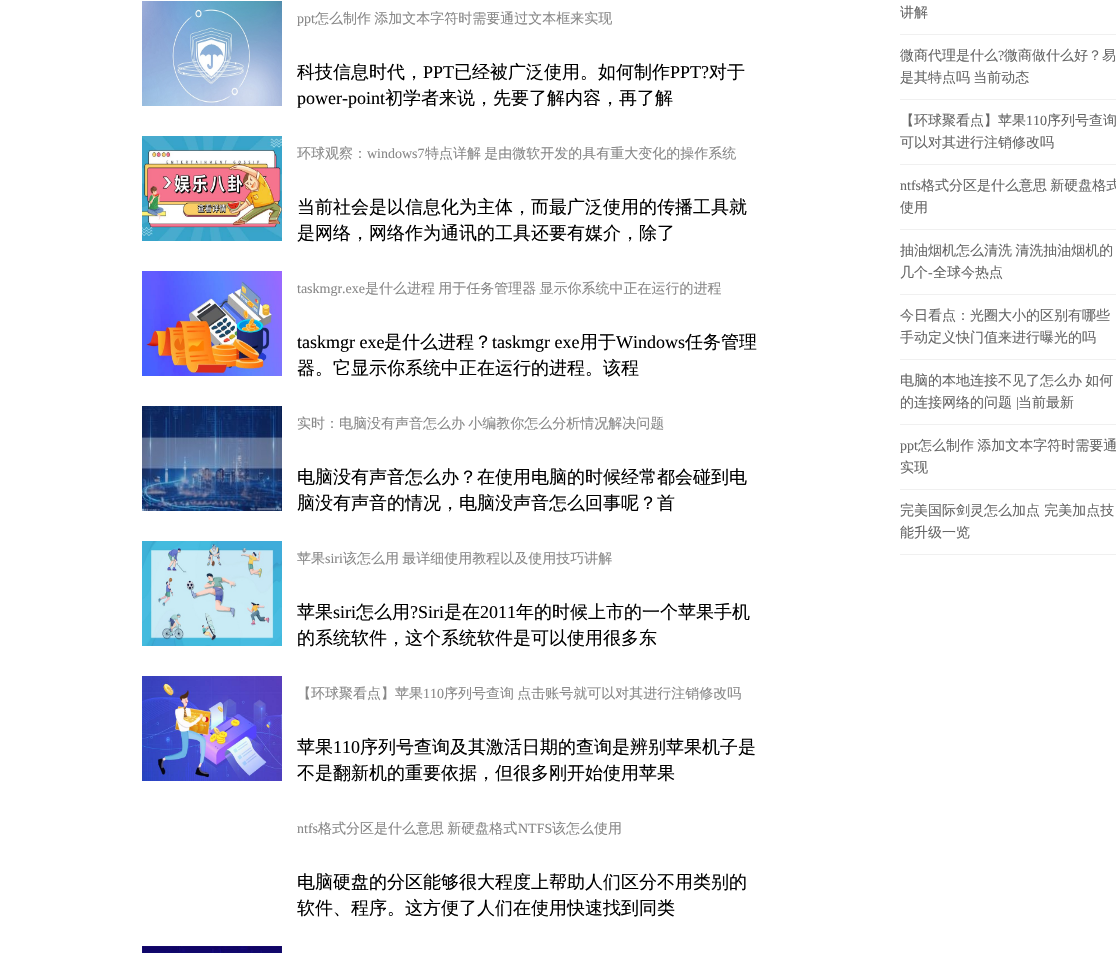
static SkFont makeFont(const char* family, int weight, float size, bool italic = false) {
  SkFontStyle style(weight, SkFontStyle::kNormal_Width,
    italic ? SkFontStyle::kItalic_Slant : SkFontStyle::kUpright_Slant);
  SkFont result(fontMgr->matchFamilyStyle(family, style), size);
  result.setSubpixel(true);
  return result;
}

static void text(SkCanvas* c, const char* s, float x, float y, const SkFont& font, SkColor color) {
  SkPaint ink(SkColor4f::FromColor(color));
  ink.setAntiAlias(true);
  c->drawString(s, x, y, font, ink);
}

static void spacedText(SkCanvas* c, const char* s, float x, float y, const SkFont& font, const SkPaint& ink, float letter, float word) {
  std::vector<SkGlyphID> glyphs(font.countText(s, strlen(s), SkTextEncoding::kUTF8));
  std::vector<float> xs(glyphs.size());
  font.textToGlyphs(s, strlen(s), SkTextEncoding::kUTF8, glyphs);
  font.getXPos(glyphs, xs, x);
  float extra = 0;
  for (size_t i = 0; i < glyphs.size(); i++) {
    xs[i] += extra;
    extra += letter + word * (glyphs[i] == font.unicharToGlyph(' '));
  }
  c->drawTextBlob(SkTextBlob::MakeFromPosHGlyphs(glyphs, xs, y, font), 0, 0, ink);
}

static void box(SkCanvas* c, float l, float t, float r, float b, SkColor color) {
  SkPaint ink(SkColor4f::FromColor(color));
  ink.setAntiAlias(true);
  c->drawRect(SkRect::MakeLTRB(l, t, r, b), ink);
}

static void picture(SkCanvas* c, const char* path, float l, float t, float r, float b) {
  auto image = SkImages::DeferredFromEncodedData(SkData::MakeFromFileName(path));
  c->drawImageRect(image, SkRect::MakeLTRB(l, t, r, b), SkSamplingOptions());
}

void draw(SkCanvas* c) {
  SkPaint paint;
  paint.setAntiAlias(true);
  c->clear(0xffffffff);
  picture(c, "img_01.png", 142, 1, 282, 106);
  SkFont face1 = makeFont("Liberation Serif", 400, 14);
  text(c, "ppt", 297, 23, face1, 0xff888888);
  SkFont face2 = makeFont("WenQuanYi Zen Hei", 500, 14);
  paint.setColor(0xff888888);
  spacedText(c, "怎么制作 添加文本字符时需要通过文本框来实现", 315, 23, face2, paint, 0, -1);
  SkFont face3 = makeFont("WenQuanYi Zen Hei", 500, 18);
  text(c, "科技信息时代，", 297, 78, face3, 0xff000000);
  SkFont face4 = makeFont("Liberation Serif", 400, 18);
  text(c, "PPT", 423, 78, face4, 0xff000000);
  text(c, "已经被广泛使用。如何制作", 454, 78, face3, 0xff000000);
  text(c, "PPT?", 670, 78, face4, 0xff000000);
  text(c, "对于", 709, 78, face3, 0xff000000);
  text(c, "power-point", 297, 104, face4, 0xff000000);
  text(c, "初学者来说，先要了解内容，再了解", 385, 104, face3, 0xff000000);
  picture(c, "img_02.png", 142, 136, 282, 241);
  text(c, "环球观察：", 297, 158, face2, 0xff888888);
  text(c, "windows7", 367, 158, face1, 0xff888888);
  spacedText(c, "特点详解 是由微软开发的具有重大变化的操作系统", 425, 158, face2, paint, 0, -1);
  text(c, "当前社会是以信息化为主体，而最广泛使用的传播工具就", 297, 213, face3, 0xff000000);
  text(c, "是网络，网络作为通讯的工具还要有媒介，除了", 297, 239, face3, 0xff000000);
  picture(c, "img_03.png", 142, 271, 282, 376);
  text(c, "taskmgr.exe", 297, 293, face1, 0xff888888);
  spacedText(c, "是什么进程 用于任务管理器 显示你系统中正在运行的进程", 365, 293, face2, paint, 0, -1);
  text(c, "taskmgr exe", 297, 348, face4, 0xff000000);
  text(c, "是什么进程？", 384, 348, face3, 0xff000000);
  text(c, "taskmgr exe", 492, 348, face4, 0xff000000);
  text(c, "用于", 580, 348, face3, 0xff000000);
  text(c, "Windows", 616, 348, face4, 0xff000000);
  text(c, "任务管理", 685, 348, face3, 0xff000000);
  text(c, "器。它显示你系统中正在运行的进程。该程", 297, 374, face3, 0xff000000);
  picture(c, "img_04.png", 142, 406, 282, 511);
  spacedText(c, "实时：电脑没有声音怎么办 小编教你怎么分析情况解决问题", 297, 428, face2, paint, 0, -1);
  text(c, "电脑没有声音怎么办？在使用电脑的时候经常都会碰到电", 297, 483, face3, 0xff000000);
  text(c, "脑没有声音的情况，电脑没声音怎么回事呢？首", 297, 509, face3, 0xff000000);
  picture(c, "img_05.png", 142, 541, 282, 646);
  text(c, "苹果", 297, 563, face2, 0xff888888);
  text(c, "siri", 325, 563, face1, 0xff888888);
  spacedText(c, "该怎么用 最详细使用教程以及使用技巧讲解", 343, 563, face2, paint, 0, -1);
  text(c, "苹果", 297, 618, face3, 0xff000000);
  text(c, "siri", 333, 618, face4, 0xff000000);
  text(c, "怎么用", 356, 618, face3, 0xff000000);
  text(c, "?Siri", 410, 618, face4, 0xff000000);
  text(c, "是在", 444, 618, face3, 0xff000000);
  text(c, "2011", 480, 618, face4, 0xff000000);
  text(c, "年的时候上市的一个苹果手机", 516, 618, face3, 0xff000000);
  text(c, "的系统软件，这个系统软件是可以使用很多东", 297, 644, face3, 0xff000000);
  picture(c, "img_06.png", 142, 676, 282, 781);
  text(c, "【环球聚看点】苹果", 297, 698, face2, 0xff888888);
  text(c, "110", 423, 698, face1, 0xff888888);
  spacedText(c, "序列号查询 点击账号就可以对其进行注销修改吗", 444, 698, face2, paint, 0, -1);
  text(c, "苹果", 297, 753, face3, 0xff000000);
  text(c, "110", 333, 753, face4, 0xff000000);
  text(c, "序列号查询及其激活日期的查询是辨别苹果机子是", 360, 753, face3, 0xff000000);
  text(c, "不是翻新机的重要依据，但很多刚开始使用苹果", 297, 779, face3, 0xff000000);
  text(c, "ntfs", 297, 833, face1, 0xff888888);
  spacedText(c, "格式分区是什么意思 新硬盘格式", 318, 833, face2, paint, 0, -1);
  text(c, "NTFS", 518, 833, face1, 0xff888888);
  text(c, "该怎么使用", 552, 833, face2, 0xff888888);
  text(c, "电脑硬盘的分区能够很大程度上帮助人们区分不用类别的", 297, 888, face3, 0xff000000);
  text(c, "软件、程序。这方便了人们在使用快速找到同类", 297, 914, face3, 0xff000000);
  picture(c, "img_07.png", 142, 946, 282, 953);
  box(c, 900, 34, 1116, 35, 0xfff0f0f0);
  text(c, "讲解", 900, 17, face2, 0xff666666);
  box(c, 900, 99, 1116, 100, 0xfff0f0f0);
  text(c, "微商代理是什么", 900, 60, face2, 0xff666666);
  text(c, "?", 998, 60, face1, 0xff666666);
  text(c, "微商做什么好？易", 1004, 60, face2, 0xff666666);
  paint.setColor(0xff666666);
  spacedText(c, "是其特点吗 当前动态", 900, 82, face2, paint, 0, -1);
  box(c, 900, 164, 1116, 165, 0xfff0f0f0);
  text(c, "【环球聚看点】苹果", 900, 125, face2, 0xff666666);
  text(c, "110", 1026, 125, face1, 0xff666666);
  spacedText(c, "序列号查询", 1047, 125, face2, paint, 0, -1);
  text(c, "可以对其进行注销修改吗", 900, 147, face2, 0xff666666);
  box(c, 900, 229, 1116, 230, 0xfff0f0f0);
  text(c, "ntfs", 900, 190, face1, 0xff666666);
  spacedText(c, "格式分区是什么意思 新硬盘格式", 921, 190, face2, paint, 0, -1);
  text(c, "使用", 900, 212, face2, 0xff666666);
  box(c, 900, 294, 1116, 295, 0xfff0f0f0);
  spacedText(c, "抽油烟机怎么清洗 清洗抽油烟机的", 900, 255, face2, paint, 0, -1);
  text(c, "几个", 900, 277, face2, 0xff666666);
  text(c, "-", 928, 277, face1, 0xff666666);
  text(c, "全球今热点", 933, 277, face2, 0xff666666);
  box(c, 900, 359, 1116, 360, 0xfff0f0f0);
  spacedText(c, "今日看点：光圈大小的区别有哪些", 900, 320, face2, paint, 0, -1);
  text(c, "手动定义快门值来进行曝光的吗", 900, 342, face2, 0xff666666);
  box(c, 900, 424, 1116, 425, 0xfff0f0f0);
  spacedText(c, "电脑的本地连接不见了怎么办 如何", 900, 385, face2, paint, 0, -1);
  text(c, "的连接网络的问题", 900, 407, face2, 0xff666666);
  text(c, "|", 1016, 407, face1, 0xff666666);
  text(c, "当前最新", 1018, 407, face2, 0xff666666);
  box(c, 900, 489, 1116, 490, 0xfff0f0f0);
  text(c, "ppt", 900, 450, face1, 0xff666666);
  spacedText(c, "怎么制作 添加文本字符时需要通", 918, 450, face2, paint, 0, -1);
  text(c, "实现", 900, 472, face2, 0xff666666);
  box(c, 900, 554, 1116, 555, 0xfff0f0f0);
  text(c, "完美国际剑灵怎么加点 完美加点技", 900, 515, face2, 0xff666666);
  text(c, "能升级一览", 900, 537, face2, 0xff666666);
}
